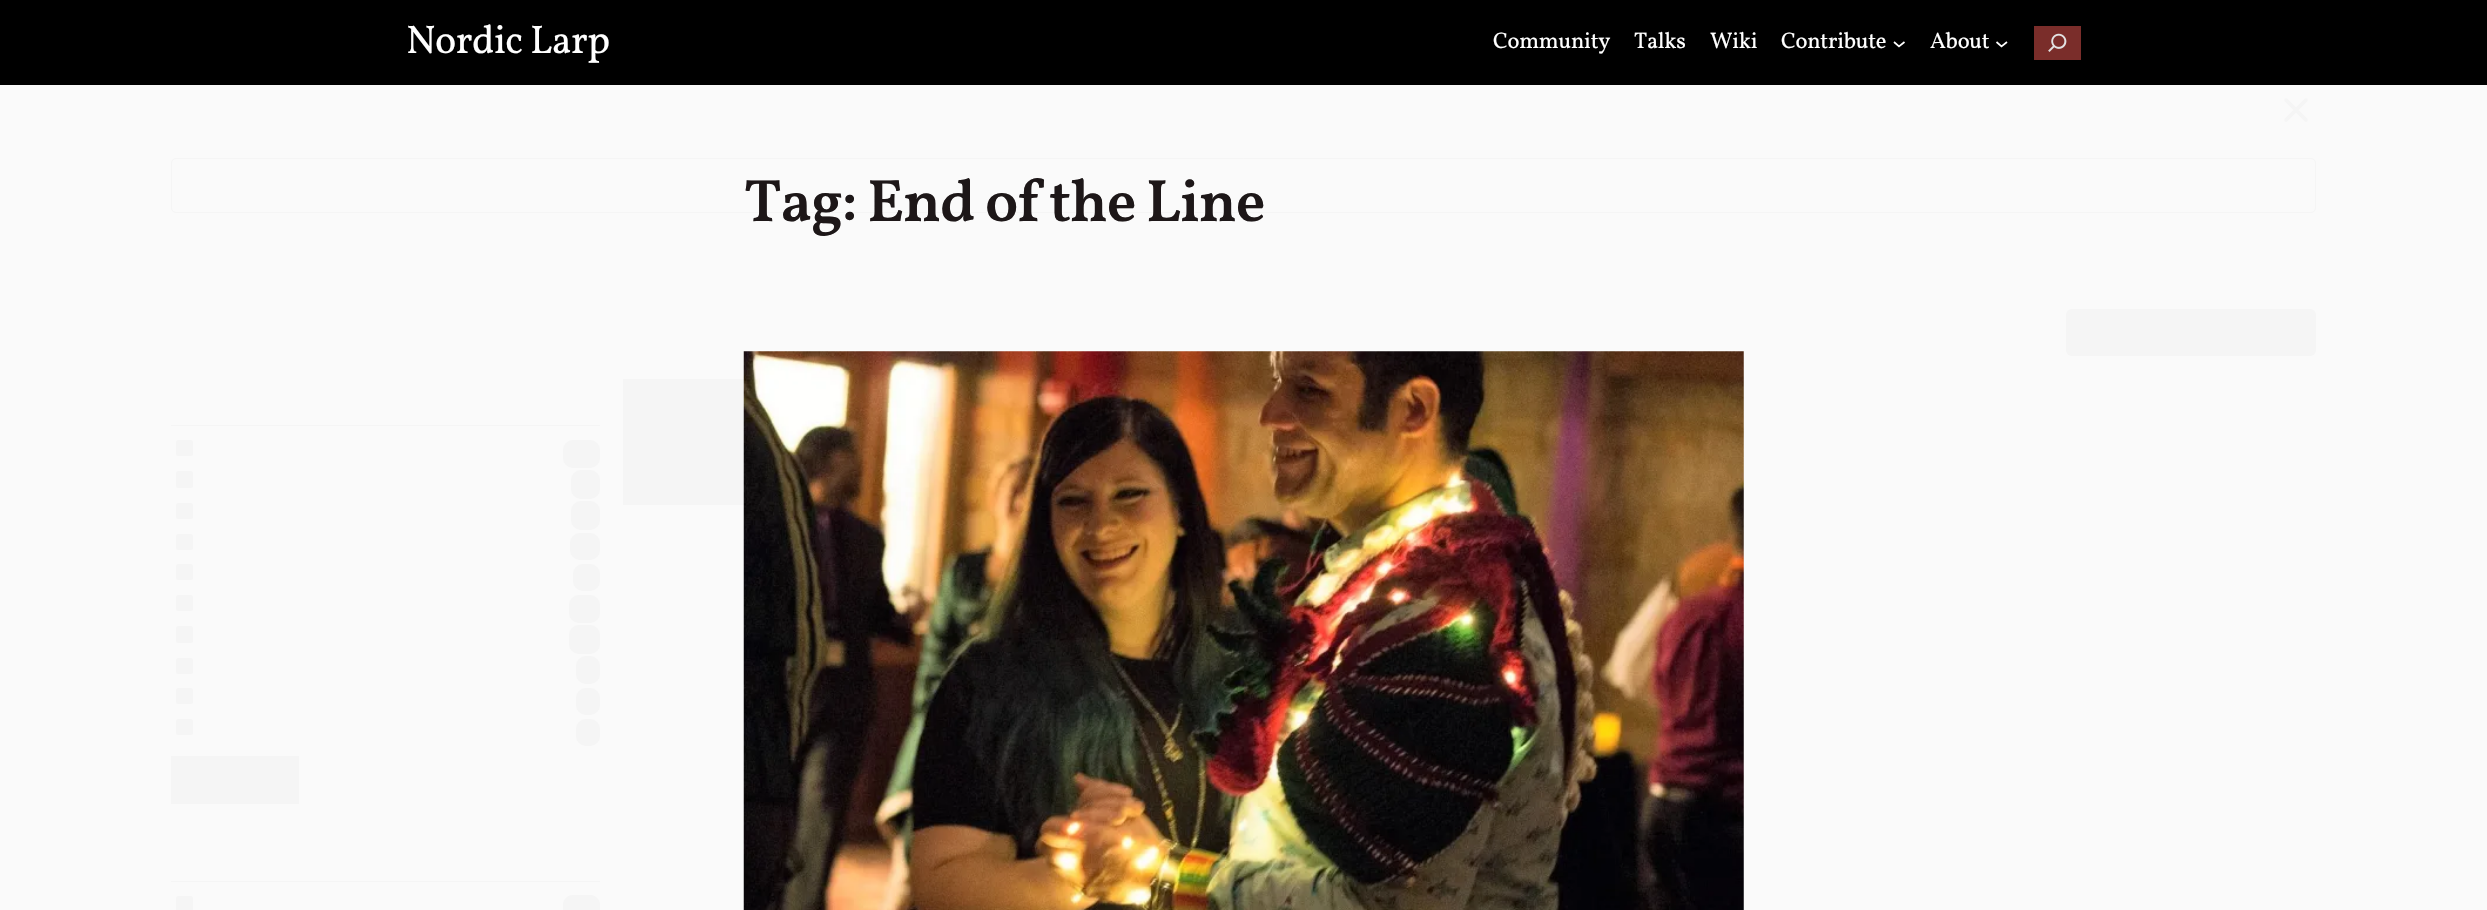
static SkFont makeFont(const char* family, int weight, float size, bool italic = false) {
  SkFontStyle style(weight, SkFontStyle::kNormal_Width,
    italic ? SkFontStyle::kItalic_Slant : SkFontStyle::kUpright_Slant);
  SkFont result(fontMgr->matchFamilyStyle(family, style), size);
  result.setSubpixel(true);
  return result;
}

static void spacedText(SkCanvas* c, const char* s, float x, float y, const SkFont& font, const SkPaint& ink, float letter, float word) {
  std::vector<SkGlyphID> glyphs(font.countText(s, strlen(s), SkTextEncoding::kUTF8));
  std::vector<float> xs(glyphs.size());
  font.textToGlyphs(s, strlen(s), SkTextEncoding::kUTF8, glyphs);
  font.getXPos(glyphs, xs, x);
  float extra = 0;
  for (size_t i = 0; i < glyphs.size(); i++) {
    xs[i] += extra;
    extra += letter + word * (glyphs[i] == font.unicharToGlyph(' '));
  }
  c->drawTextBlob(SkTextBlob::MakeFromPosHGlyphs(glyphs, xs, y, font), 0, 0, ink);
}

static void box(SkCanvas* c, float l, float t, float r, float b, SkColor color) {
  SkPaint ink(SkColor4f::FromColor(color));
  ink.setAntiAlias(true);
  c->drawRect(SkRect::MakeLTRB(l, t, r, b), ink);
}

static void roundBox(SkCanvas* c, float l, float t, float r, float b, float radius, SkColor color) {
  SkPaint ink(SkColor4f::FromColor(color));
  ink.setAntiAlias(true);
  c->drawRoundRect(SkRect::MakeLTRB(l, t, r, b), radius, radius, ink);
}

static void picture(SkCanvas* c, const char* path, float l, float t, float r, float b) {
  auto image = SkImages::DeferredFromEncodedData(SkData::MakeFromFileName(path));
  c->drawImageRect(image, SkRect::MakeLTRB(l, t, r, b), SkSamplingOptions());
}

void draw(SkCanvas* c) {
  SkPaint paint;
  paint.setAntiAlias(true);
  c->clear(0xfffafafa);
  box(c, 0, 0, 2487, 85, 0xff000000);
  SkFont face1 = makeFont("Vollkorn", 400, 40);
  paint.setColor(0xffffffff);
  spacedText(c, "Nordic Larp", 406, 53, face1, paint, -0.6f, 0);
  SkFont face2 = makeFont("Vollkorn", 400, 22.5f);
  spacedText(c, "Community", 1493, 48, face2, paint, -0.25f, 0);
  spacedText(c, "Talks", 1634, 48, face2, paint, -0.25f, 0);
  spacedText(c, "Wiki", 1710, 48, face2, paint, -0.25f, 0);
  spacedText(c, "Contribute", 1781, 48, face2, paint, -0.25f, 0);
  paint.setStyle(SkPaint::kStroke_Style);
  paint.setStrokeWidth(1.7f);
  c->drawPath(SkPathBuilder().moveTo(1894, 42).lineTo(1899, 46.5f).lineTo(1904.5f, 42).detach(), paint);
  paint.setStyle(SkPaint::kFill_Style);
  spacedText(c, "About", 1930, 48, face2, paint, -0.25f, 0);
  paint.setStyle(SkPaint::kStroke_Style);
  c->drawPath(SkPathBuilder().moveTo(1996.5f, 42).lineTo(2001.5f, 46.5f).lineTo(2007, 42).detach(), paint);
  box(c, 2034, 26, 2081, 60, 0xff7a2d2a);
  picture(c, "img_01.png", 2048, 33, 2067, 52);
  paint.setStrokeWidth(1);
  paint.setColor(0xfff5f5f5);
  c->drawRoundRect(SkRect::MakeLTRB(171.5f, 158.5f, 2315.5f, 212.5f), 4.5f, 4.5f, paint);
  SkFont face3 = makeFont("Vollkorn", 600, 60);
  paint.setStyle(SkPaint::kFill_Style);
  paint.setColor(0xff1d1718);
  spacedText(c, "Tag: End of the Line", 744, 221, face3, paint, -1.2f, 0);
  box(c, 623, 379, 744, 505, 0xfff5f5f5);
  picture(c, "img_02.png", 743, 351, 1744, 910);
  paint.setStyle(SkPaint::kStroke_Style);
  paint.setStrokeWidth(3.3f);
  paint.setStrokeCap(SkPaint::kRound_Cap);
  paint.setStrokeJoin(SkPaint::kRound_Join);
  paint.setColor(0xfff5f5f5);
  c->drawPath(SkPathBuilder().moveTo(2286, 120).lineTo(2306, 100).moveTo(2286, 100).lineTo(2306, 120).detach(), paint);
  roundBox(c, 2066, 309, 2316, 356, 6, 0xfff5f5f5);
  box(c, 171, 425, 600, 426, 0xfff5f5f5);
  roundBox(c, 176, 440, 193, 456, 2.5f, 0xfff5f5f5);
  roundBox(c, 563, 440, 600, 468, 10, 0xfff5f5f5);
  roundBox(c, 176, 471, 193, 488, 2.5f, 0xfff5f5f5);
  roundBox(c, 571, 470, 600, 499, 10, 0xfff5f5f5);
  roundBox(c, 176, 503, 193, 519, 2.5f, 0xfff5f5f5);
  roundBox(c, 571, 501, 600, 530, 10, 0xfff5f5f5);
  roundBox(c, 176, 534, 193, 550, 2.5f, 0xfff5f5f5);
  roundBox(c, 570, 533, 600, 560, 10, 0xfff5f5f5);
  roundBox(c, 176, 564, 193, 580, 2.5f, 0xfff5f5f5);
  roundBox(c, 573, 564, 600, 591, 10, 0xfff5f5f5);
  roundBox(c, 176, 595, 193, 611, 2.5f, 0xfff5f5f5);
  roundBox(c, 569, 595, 600, 623, 10, 0xfff5f5f5);
  roundBox(c, 176, 626, 193, 643, 2.5f, 0xfff5f5f5);
  roundBox(c, 569, 625, 600, 654, 10, 0xfff5f5f5);
  roundBox(c, 176, 658, 193, 674, 2.5f, 0xfff5f5f5);
  roundBox(c, 576, 656, 600, 684, 10, 0xfff5f5f5);
  roundBox(c, 176, 688, 193, 704, 2.5f, 0xfff5f5f5);
  roundBox(c, 576, 688, 600, 715, 10, 0xfff5f5f5);
  roundBox(c, 176, 719, 193, 735, 2.5f, 0xfff5f5f5);
  roundBox(c, 576, 719, 600, 746, 10, 0xfff5f5f5);
  box(c, 171, 756, 299, 804, 0xfff5f5f5);
  box(c, 171, 881, 600, 882, 0xfff5f5f5);
  paint.setStyle(SkPaint::kFill_Style);
  c->drawPath(SkPathBuilder().moveTo(178.5f, 896).lineTo(190.5f, 896).cubicTo(192, 896, 193, 897, 193, 898.5f).lineTo(193, 910).lineTo(176, 910).lineTo(176, 898.5f).cubicTo(176, 897, 177, 896, 178.5f, 896).close().detach(), paint);
  c->drawPath(SkPathBuilder().moveTo(573, 895).lineTo(590, 895).cubicTo(595.5f, 895, 600, 899.5f, 600, 905).lineTo(600, 910).lineTo(563, 910).lineTo(563, 905).cubicTo(563, 899.5f, 567.5f, 895, 573, 895).close().detach(), paint);
}
